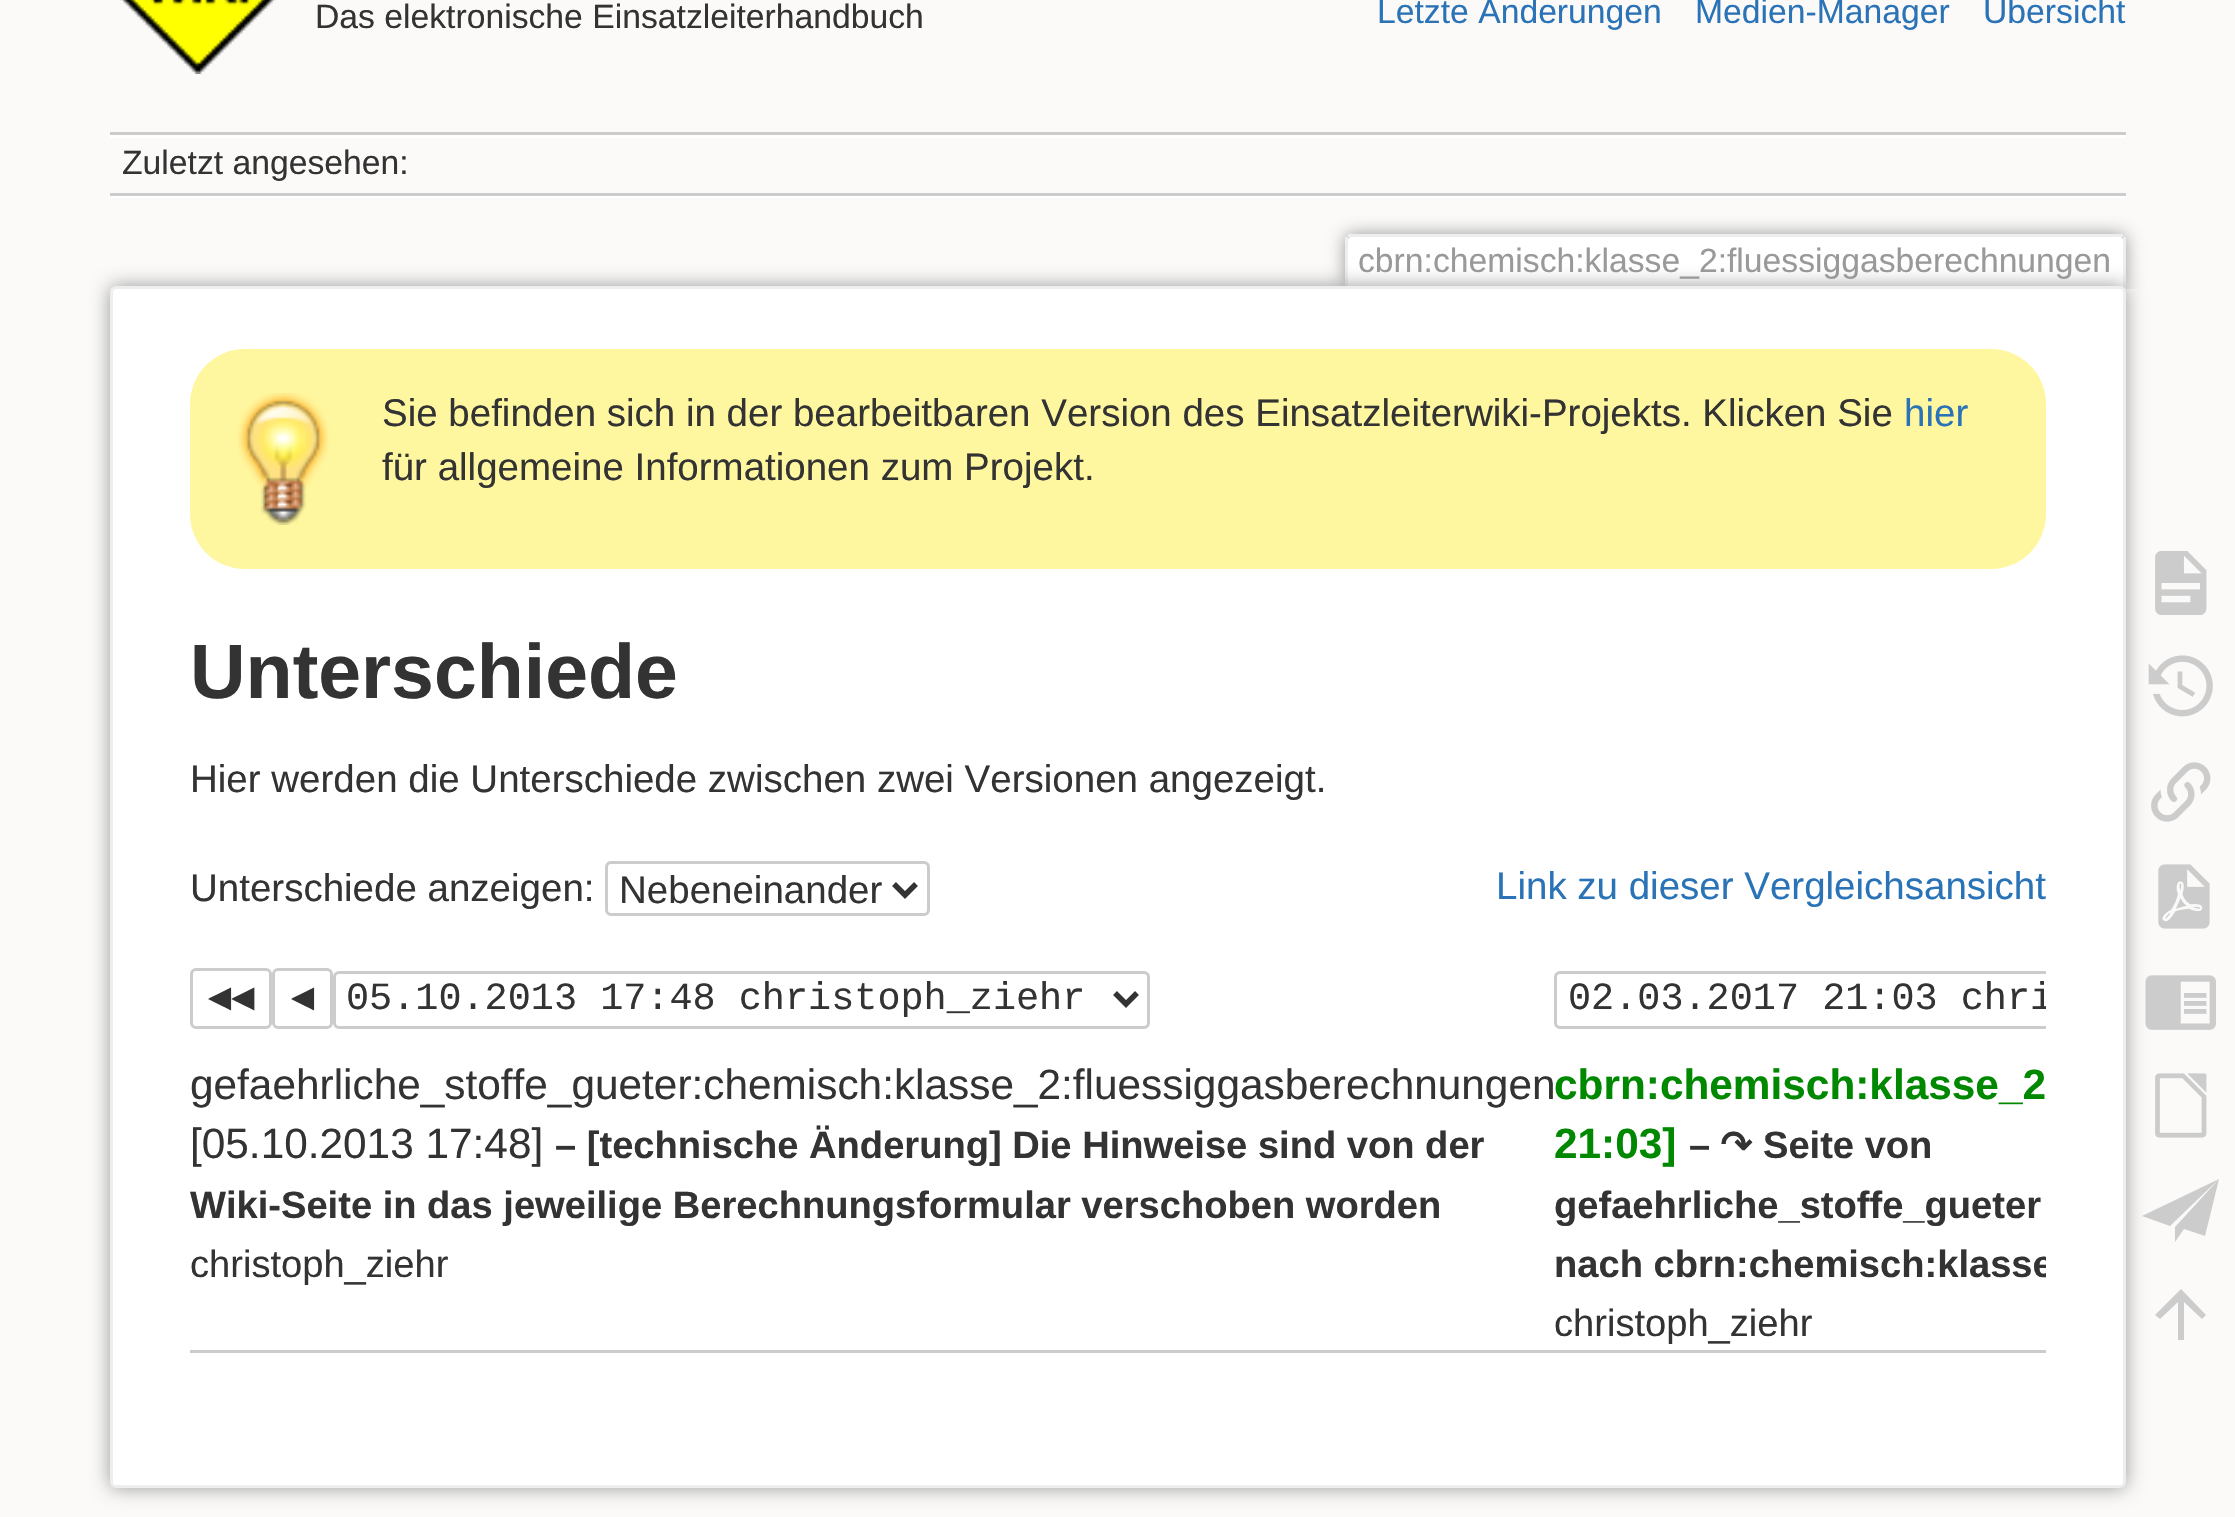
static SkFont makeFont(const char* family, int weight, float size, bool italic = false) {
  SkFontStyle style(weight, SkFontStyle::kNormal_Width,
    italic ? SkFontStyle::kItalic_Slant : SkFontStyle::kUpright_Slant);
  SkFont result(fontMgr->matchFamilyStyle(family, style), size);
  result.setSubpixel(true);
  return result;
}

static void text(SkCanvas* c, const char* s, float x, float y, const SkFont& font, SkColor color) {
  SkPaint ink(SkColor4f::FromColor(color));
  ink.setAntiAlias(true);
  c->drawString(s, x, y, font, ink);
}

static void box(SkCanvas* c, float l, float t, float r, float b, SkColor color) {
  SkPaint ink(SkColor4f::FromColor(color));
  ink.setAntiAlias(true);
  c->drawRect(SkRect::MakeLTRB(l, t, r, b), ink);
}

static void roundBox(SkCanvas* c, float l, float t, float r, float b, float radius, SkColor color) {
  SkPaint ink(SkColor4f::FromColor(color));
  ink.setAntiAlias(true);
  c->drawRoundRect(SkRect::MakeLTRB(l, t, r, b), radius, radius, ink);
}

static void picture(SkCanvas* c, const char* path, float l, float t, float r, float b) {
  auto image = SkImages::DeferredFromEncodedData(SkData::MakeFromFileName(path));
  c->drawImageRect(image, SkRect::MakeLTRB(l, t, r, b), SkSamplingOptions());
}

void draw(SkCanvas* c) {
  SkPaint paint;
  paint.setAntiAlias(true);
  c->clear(0xfffbfaf9);
  picture(c, "img_01.png", 120, 0, 276, 74);
  SkFont face1 = makeFont("Liberation Sans", 400, 33.7f);
  text(c, "Das elektronische Einsatzleiterhandbuch", 315, 28, face1, 0xff333333);
  text(c, "Letzte Änderungen", 1377, 23, face1, 0xff2b73b7);
  text(c, "Medien-Manager", 1695, 23, face1, 0xff2b73b7);
  text(c, "Übersicht", 1983, 23, face1, 0xff2b73b7);
  box(c, 110, 132, 2126, 135, 0xffcccccc);
  box(c, 110, 196, 2126, 198, 0xffffffff);
  box(c, 110, 135, 2126, 138, 0xffffffff);
  box(c, 110, 193, 2126, 196, 0xffcccccc);
  text(c, "Zuletzt angesehen:", 122, 174, face1, 0xff333333);
  c->save();
  c->clipRect(SkRect::MakeLTRB(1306, 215, 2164, 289));
  paint.setColor(0xff999999);
  paint.setMaskFilter(SkMaskFilter::MakeBlur(kNormal_SkBlurStyle, 8.5f));
  c->drawRoundRect(SkRect::MakeLTRB(1345, 234, 2126, 289), 6, 6, paint);
  paint.setMaskFilter(nullptr);
  c->restore();
  paint.setColor(0xffffffff);
  c->drawPath(SkPathBuilder().moveTo(1351, 237).lineTo(2120, 237).cubicTo(2121.5f, 237, 2123, 238.5f, 2123, 240).lineTo(2123, 289).lineTo(1348, 289).lineTo(1348, 240).cubicTo(1348, 238.5f, 1349.5f, 237, 1351, 237).close().detach(), paint);
  box(c, 1348, 234, 2123, 237, 0xffeeeeee);
  box(c, 2123, 237, 2126, 289, 0xffeeeeee);
  box(c, 1345, 237, 1348, 289, 0xffeeeeee);
  text(c, "cbrn:chemisch:klasse_2:fluessiggasberechnungen", 1358, 272, face1, 0xff999999);
  paint.setColor(0xff999999);
  paint.setMaskFilter(SkMaskFilter::MakeBlur(kNormal_SkBlurStyle, 9.5f));
  c->drawRoundRect(SkRect::MakeLTRB(110, 286, 2126, 1488), 6, 6, paint);
  paint.setMaskFilter(nullptr);
  paint.setColor(0xffffffff);
  c->drawRoundRect(SkRect::MakeLTRB(111.5f, 287.5f, 2124.5f, 1486.5f), 4.5f, 4.5f, paint);
  paint.setStyle(SkPaint::kStroke_Style);
  paint.setStrokeWidth(3);
  paint.setColor(0xffeeeeee);
  c->drawRoundRect(SkRect::MakeLTRB(111.5f, 287.5f, 2124.5f, 1486.5f), 4.5f, 4.5f, paint);
  roundBox(c, 190, 349, 2046, 569, 55, 0xfffff79f);
  picture(c, "img_02.png", 237, 393, 330, 525);
  SkFont face2 = makeFont("Liberation Sans", 400, 38.5f);
  text(c, "Sie befinden sich in der bearbeitbaren Version des Einsatzleiterwiki-Projekts. Klicken Sie", 382, 426, face2, 0xff333333);
  text(c, "hier", 1904, 426, face2, 0xff2b73b7);
  text(c, "für allgemeine Informationen zum Projekt.", 382, 480, face2, 0xff333333);
  SkFont face3 = makeFont("Liberation Sans", 700, 77);
  text(c, "Unterschiede", 190, 698, face3, 0xff333333);
  text(c, "Hier werden die Unterschiede zwischen zwei Versionen angezeigt.", 190, 792, face2, 0xff333333);
  text(c, "Unterschiede anzeigen:", 190, 901, face2, 0xff333333);
  paint.setColor(0xffcccccc);
  c->drawRoundRect(SkRect::MakeLTRB(606.5f, 862.5f, 928.5f, 914.5f), 4.5f, 4.5f, paint);
  paint.setStrokeWidth(5.5f);
  paint.setColor(0xff333333);
  c->drawPath(SkPathBuilder().moveTo(894, 884).lineTo(905, 895).lineTo(916, 884).detach(), paint);
  text(c, "Nebeneinander", 619, 903, face2, 0xff333333);
  text(c, "Link zu dieser Vergleichsansicht", 1496, 899, face2, 0xff2b73b7);
  paint.setStrokeWidth(3);
  paint.setColor(0xffcccccc);
  c->drawRoundRect(SkRect::MakeLTRB(191.5f, 969.5f, 270.5f, 1027.5f), 4.5f, 4.5f, paint);
  SkFont face4 = makeFont("DejaVu Sans Mono", 400, 38.5f);
  text(c, "◀◀", 208, 1009, face4, 0xff333333);
  c->drawRoundRect(SkRect::MakeLTRB(273.5f, 969.5f, 331.5f, 1027.5f), 4.5f, 4.5f, paint);
  text(c, "◀", 291, 1009, face4, 0xff333333);
  c->drawRoundRect(SkRect::MakeLTRB(334.5f, 972.5f, 1148.5f, 1027.5f), 4.5f, 4.5f, paint);
  paint.setStrokeWidth(5.5f);
  paint.setColor(0xff333333);
  c->drawPath(SkPathBuilder().moveTo(1115, 993).lineTo(1126, 1004).lineTo(1137, 993).detach(), paint);
  SkFont face5 = makeFont("Liberation Mono", 400, 38.5f);
  text(c, "05.10.2013 17:48 christoph_ziehr", 346, 1009, face5, 0xff333333);
  c->save();
  c->clipRect(SkRect::MakeLTRB(190, 968, 2046, 1353));
  paint.setStrokeWidth(3);
  paint.setColor(0xffcccccc);
  c->drawRoundRect(SkRect::MakeLTRB(1555.5f, 972.5f, 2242.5f, 1027.5f), 4.5f, 4.5f, paint);
  c->restore();
  c->save();
  c->clipRect(SkRect::MakeLTRB(1568, 974, 2046, 1023));
  text(c, "02.03.2017 21:03 chri", 1568, 1009, face5, 0xff333333);
  c->restore();
  SkFont face6 = makeFont("Liberation Sans", 400, 42.35f);
  text(c, "gefaehrliche_stoffe_gueter:chemisch:klasse_2:fluessiggasberechnungen", 190, 1099, face6, 0xff333333);
  text(c, "[05.10.2013 17:48]", 190, 1158, face6, 0xff333333);
  SkFont face7 = makeFont("Liberation Sans", 700, 38.1f);
  text(c, "– [technische Änderung] Die Hinweise sind von der", 555, 1158, face7, 0xff333333);
  text(c, "Wiki-Seite in das jeweilige Berechnungsformular verschoben worden", 190, 1218, face7, 0xff333333);
  SkFont face8 = makeFont("Liberation Sans", 400, 38.1f);
  text(c, "christoph_ziehr", 190, 1277, face8, 0xff333333);
  box(c, 190, 1350, 2046, 1353, 0xffcccccc);
  SkFont face9 = makeFont("Liberation Sans", 700, 42.35f);
  text(c, "cbrn:chemisch:klasse_2", 1554, 1099, face9, 0xff008800);
  text(c, "21:03]", 1554, 1158, face9, 0xff008800);
  text(c, "–", 1689, 1158, face7, 0xff333333);
  SkFont face10 = makeFont("DejaVu Sans", 700, 38.1f);
  text(c, "↷", 1720, 1158, face10, 0xff333333);
  text(c, "Seite von", 1763, 1158, face7, 0xff333333);
  text(c, "gefaehrliche_stoffe_gueter", 1554, 1218, face7, 0xff333333);
  c->save();
  c->clipRect(SkRect::MakeLTRB(190, 968, 2046, 1353));
  text(c, "nach cbrn:chemisch:klasse", 1554, 1277, face7, 0xff333333);
  c->restore();
  text(c, "christoph_ziehr", 1554, 1336, face8, 0xff333333);
  picture(c, "img_03.png", 2155, 551, 2207, 615);
  picture(c, "img_04.png", 2148, 655, 2213, 717);
  picture(c, "img_05.png", 2151, 762, 2211, 822);
  picture(c, "img_06.png", 2158, 864, 2210, 929);
  picture(c, "img_07.png", 2145, 975, 2216, 1030);
  picture(c, "img_08.png", 2155, 1073, 2207, 1138);
  paint.setStyle(SkPaint::kFill_Style);
  c->drawPath(SkPathBuilder().moveTo(2175, 1227).lineTo(2219, 1179).lineTo(2205, 1236).lineTo(2184, 1229).lineTo(2175, 1242).close().moveTo(2219, 1179).lineTo(2170, 1226).lineTo(2142, 1216).close().detach(), paint);
  c->drawPath(SkPathBuilder().moveTo(2184, 1340).lineTo(2178, 1340).lineTo(2178, 1302).lineTo(2160, 1319).lineTo(2155, 1315).lineTo(2181, 1289).lineTo(2206, 1315).lineTo(2202, 1319).lineTo(2184, 1302).close().detach(), paint);
}
